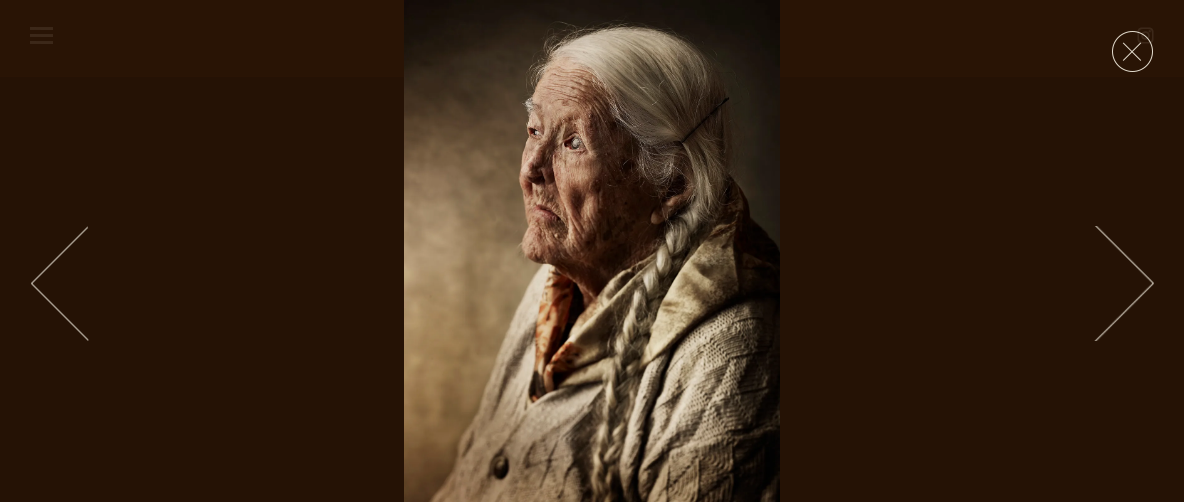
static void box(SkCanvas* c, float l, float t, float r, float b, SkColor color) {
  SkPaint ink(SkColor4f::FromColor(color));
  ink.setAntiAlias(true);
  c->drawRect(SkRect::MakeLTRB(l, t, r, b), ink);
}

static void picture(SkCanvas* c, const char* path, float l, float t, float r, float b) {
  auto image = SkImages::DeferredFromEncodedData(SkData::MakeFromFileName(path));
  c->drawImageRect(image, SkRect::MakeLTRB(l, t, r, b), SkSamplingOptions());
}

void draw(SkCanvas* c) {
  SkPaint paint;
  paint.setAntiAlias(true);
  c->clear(0xff251205);
  box(c, 0, 0, 1184, 76, 0xff291405);
  box(c, 0, 76, 1184, 77, 0xff2a1405);
  picture(c, "img_01.png", 30, 27, 53, 44);
  picture(c, "img_02.png", 1137, 27, 1154, 44);
  picture(c, "img_03.png", 404, 0, 780, 502);
  picture(c, "img_04.png", 1112, 31, 1153, 72);
  picture(c, "img_05.png", 31, 226, 89, 341);
  picture(c, "img_06.png", 1094, 226, 1154, 341);
}
